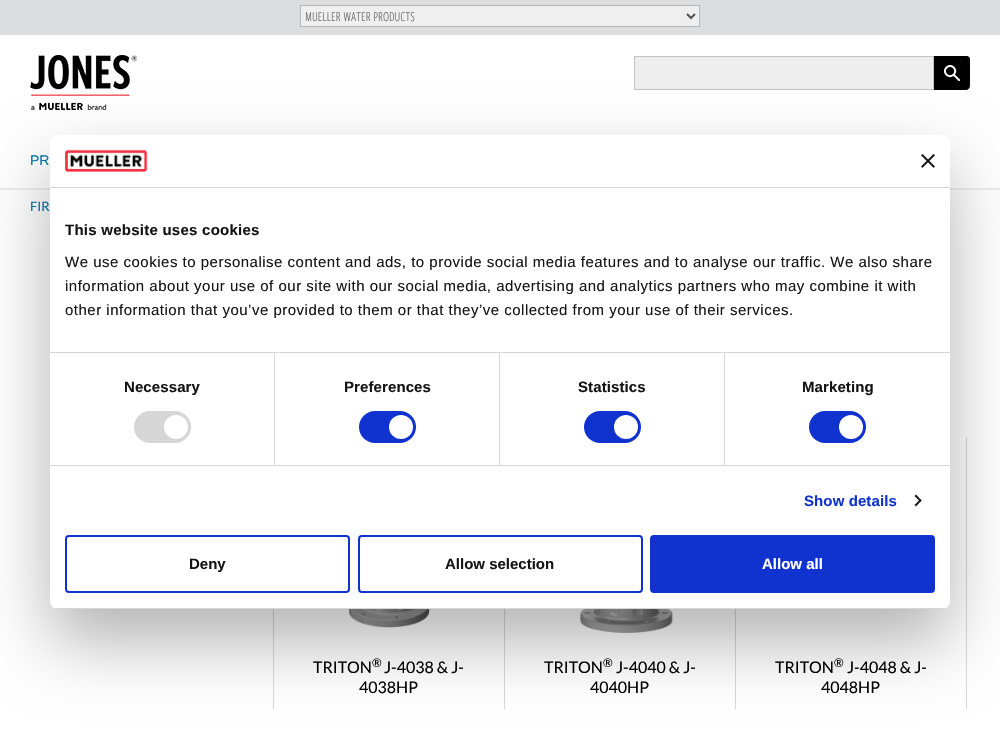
static SkFont makeFont(const char* family, int weight, float size, bool italic = false) {
  SkFontStyle style(weight, SkFontStyle::kNormal_Width,
    italic ? SkFontStyle::kItalic_Slant : SkFontStyle::kUpright_Slant);
  SkFont result(fontMgr->matchFamilyStyle(family, style), size);
  result.setSubpixel(true);
  return result;
}

static void text(SkCanvas* c, const char* s, float x, float y, const SkFont& font, SkColor color) {
  SkPaint ink(SkColor4f::FromColor(color));
  ink.setAntiAlias(true);
  c->drawString(s, x, y, font, ink);
}

static void spacedText(SkCanvas* c, const char* s, float x, float y, const SkFont& font, const SkPaint& ink, float letter, float word) {
  std::vector<SkGlyphID> glyphs(font.countText(s, strlen(s), SkTextEncoding::kUTF8));
  std::vector<float> xs(glyphs.size());
  font.textToGlyphs(s, strlen(s), SkTextEncoding::kUTF8, glyphs);
  font.getXPos(glyphs, xs, x);
  float extra = 0;
  for (size_t i = 0; i < glyphs.size(); i++) {
    xs[i] += extra;
    extra += letter + word * (glyphs[i] == font.unicharToGlyph(' '));
  }
  c->drawTextBlob(SkTextBlob::MakeFromPosHGlyphs(glyphs, xs, y, font), 0, 0, ink);
}

static void box(SkCanvas* c, float l, float t, float r, float b, SkColor color) {
  SkPaint ink(SkColor4f::FromColor(color));
  ink.setAntiAlias(true);
  c->drawRect(SkRect::MakeLTRB(l, t, r, b), ink);
}

static void roundBox(SkCanvas* c, float l, float t, float r, float b, float radius, SkColor color) {
  SkPaint ink(SkColor4f::FromColor(color));
  ink.setAntiAlias(true);
  c->drawRoundRect(SkRect::MakeLTRB(l, t, r, b), radius, radius, ink);
}

static void picture(SkCanvas* c, const char* path, float l, float t, float r, float b) {
  auto image = SkImages::DeferredFromEncodedData(SkData::MakeFromFileName(path));
  c->drawImageRect(image, SkRect::MakeLTRB(l, t, r, b), SkSamplingOptions());
}

void draw(SkCanvas* c) {
  SkPaint paint;
  paint.setAntiAlias(true);
  c->clear(0xffffffff);
  box(c, 0, 0, 1000, 35, 0xffdcddde);
  paint.setColor(0xffefefef);
  c->drawRect(SkRect::MakeLTRB(300.5f, 5.5f, 699.5f, 26.5f), paint);
  paint.setStyle(SkPaint::kStroke_Style);
  paint.setStrokeWidth(1);
  paint.setColor(0xffb8b8b7);
  c->drawRect(SkRect::MakeLTRB(300.5f, 5.5f, 699.5f, 26.5f), paint);
  paint.setStrokeWidth(2);
  paint.setColor(0xff4f4f4f);
  c->drawPath(SkPathBuilder().moveTo(687, 14).lineTo(691, 18).lineTo(695, 14).detach(), paint);
  SkFont face1 = makeFont("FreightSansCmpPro", 300, 14);
  text(c, "MUELLER WATER PRODUCTS", 305, 21, face1, 0xff4f4f4f);
  box(c, 0, 188, 1000, 190, 0xffededed);
  picture(c, "img_01.png", 30, 55, 137, 110);
  paint.setStyle(SkPaint::kFill_Style);
  paint.setColor(0xffeeeeee);
  c->drawRect(SkRect::MakeLTRB(634.5f, 56.5f, 933.5f, 89.5f), paint);
  paint.setStyle(SkPaint::kStroke_Style);
  paint.setStrokeWidth(1);
  paint.setColor(0xffc3c3c3);
  c->drawRect(SkRect::MakeLTRB(634.5f, 56.5f, 933.5f, 89.5f), paint);
  paint.setStyle(SkPaint::kFill_Style);
  paint.setColor(0xff000000);
  c->drawPath(SkPathBuilder().moveTo(934, 56).lineTo(967, 56).cubicTo(968.5f, 56, 970, 57.5f, 970, 59).lineTo(970, 86).cubicTo(970, 88, 968, 90, 966, 90).lineTo(934, 90).close().detach(), paint);
  picture(c, "img_02.png", 944, 65, 960, 81);
  SkFont face2 = makeFont("Liberation Sans", 400, 14);
  text(c, "PR", 30, 165, face2, 0xff047aa9);
  SkFont face3 = makeFont("Lato", 400, 13);
  text(c, "FIR", 30, 211, face3, 0xff047aa9);
  box(c, 504, 609, 505, 709, 0xffd7d7d7);
  box(c, 273, 609, 274, 709, 0xffd7d7d7);
  picture(c, "img_03.png", 349, 609, 430, 628);
  SkFont face4 = makeFont("Lato", 400, 16);
  text(c, "TRITON", 313, 673, face4, 0xff000000);
  SkFont face5 = makeFont("Lato", 400, 12);
  text(c, "®", 372, 667, face5, 0xff000000);
  text(c, "J-4038 & J-", 384, 673, face4, 0xff000000);
  text(c, "4038HP", 359, 693, face4, 0xff000000);
  box(c, 735, 609, 736, 709, 0xffd7d7d7);
  picture(c, "img_04.png", 580, 609, 673, 634);
  text(c, "TRITON", 544, 673, face4, 0xff000000);
  text(c, "®", 603, 667, face5, 0xff000000);
  text(c, "J-4040 & J-", 616, 673, face4, 0xff000000);
  text(c, "4040HP", 590, 693, face4, 0xff000000);
  box(c, 966, 437, 967, 709, 0xffd7d7d7);
  text(c, "TRITON", 775, 673, face4, 0xff000000);
  text(c, "®", 834, 667, face5, 0xff000000);
  text(c, "J-4048 & J-", 847, 673, face4, 0xff000000);
  text(c, "4048HP", 821, 693, face4, 0xff000000);
  paint.setColor(0x4d000000);
  paint.setMaskFilter(SkMaskFilter::MakeBlur(kNormal_SkBlurStyle, 34));
  c->drawRoundRect(SkRect::MakeLTRB(50, 167, 950, 641), 8, 8, paint);
  paint.setMaskFilter(nullptr);
  roundBox(c, 50, 135, 950, 609, 8, 0xffffffff);
  box(c, 50, 187, 950, 188, 0xffd6d6d6);
  picture(c, "img_05.png", 65, 149, 148, 172);
  picture(c, "img_06.png", 921, 154, 935, 168);
  box(c, 50, 352, 950, 353, 0xffd6d6d6);
  SkFont face6 = makeFont("Liberation Sans", 700, 15);
  paint.setColor(0xff141414);
  spacedText(c, "This website uses cookies", 65, 235, face6, paint, 0.25f, 0);
  SkFont face7 = makeFont("Liberation Sans", 400, 15);
  spacedText(c, "We use cookies to personalise content and ads, to provide social media features and to analyse our traffic. We also share", 65, 267, face7, paint, 0.5f, 0);
  spacedText(c, "information about your use of our site with our social media, advertising and analytics partners who may combine it with", 65, 291, face7, paint, 0.5f, 0);
  spacedText(c, "other information that you’ve provided to them or that they’ve collected from your use of their services.", 65, 315, face7, paint, 0.5f, 0);
  box(c, 50, 465, 950, 466, 0xffd6d6d6);
  box(c, 274, 353, 275, 465, 0xffd6d6d6);
  spacedText(c, "Necessary", 124, 392, face6, paint, 0.1f, 0);
  roundBox(c, 134, 411, 191, 443, 16, 0xffd6d6d6);
  paint.setColor(0xffffffff);
  c->drawCircle(176, 427, 12, paint);
  box(c, 499, 353, 500, 465, 0xffd6d6d6);
  paint.setColor(0xff141414);
  spacedText(c, "Preferences", 344, 392, face6, paint, 0.1f, 0);
  roundBox(c, 359, 411, 416, 443, 16, 0xff1032cf);
  paint.setColor(0xffffffff);
  c->drawCircle(401, 427, 12, paint);
  box(c, 724, 353, 725, 465, 0xffd6d6d6);
  paint.setColor(0xff141414);
  spacedText(c, "Statistics", 578, 392, face6, paint, 0.1f, 0);
  roundBox(c, 584, 411, 641, 443, 16, 0xff1032cf);
  paint.setColor(0xffffffff);
  c->drawCircle(626, 427, 12, paint);
  paint.setColor(0xff141414);
  spacedText(c, "Marketing", 802, 392, face6, paint, 0.1f, 0);
  roundBox(c, 809, 411, 866, 443, 16, 0xff1032cf);
  paint.setColor(0xffffffff);
  c->drawCircle(851, 427, 12, paint);
  paint.setColor(0xff1032cf);
  spacedText(c, "Show details", 804, 506, face6, paint, 0.1f, 0);
  paint.setColor(0xff141414);
  c->drawPath(SkPathBuilder().moveTo(916, 494.5f).lineTo(921.5f, 500.5f).lineTo(920.5f, 502).lineTo(914.5f, 496).close().detach(), paint);
  c->drawPath(SkPathBuilder().moveTo(920.5f, 499).lineTo(921.5f, 500.5f).lineTo(916, 506.5f).lineTo(914.5f, 505).close().detach(), paint);
  c->save();
  c->clipPath(SkPathBuilder().moveTo(58, 135).lineTo(942, 135).cubicTo(946.5f, 135, 950, 138.5f, 950, 143).lineTo(950, 601).cubicTo(950, 605.5f, 946.5f, 609, 942, 609).lineTo(58, 609).cubicTo(53.5f, 609, 50, 605.5f, 50, 601).lineTo(50, 143).cubicTo(50, 138.5f, 53.5f, 135, 58, 135).close().detach(), true);
  box(c, 50, 608, 950, 609, 0xffd6d6d6);
  c->restore();
  paint.setStyle(SkPaint::kStroke_Style);
  paint.setStrokeWidth(2);
  paint.setColor(0xff1032cf);
  c->drawRoundRect(SkRect::MakeLTRB(66, 536, 349, 592), 3, 3, paint);
  text(c, "Deny", 189, 569, face6, 0xff141414);
  c->drawRoundRect(SkRect::MakeLTRB(359, 536, 642, 592), 3, 3, paint);
  text(c, "Allow selection", 445, 569, face6, 0xff141414);
  paint.setStyle(SkPaint::kFill_Style);
  c->drawRoundRect(SkRect::MakeLTRB(651, 536, 934, 592), 3, 3, paint);
  paint.setStyle(SkPaint::kStroke_Style);
  c->drawRoundRect(SkRect::MakeLTRB(651, 536, 934, 592), 3, 3, paint);
  text(c, "Allow all", 762, 569, face6, 0xffffffff);
}
